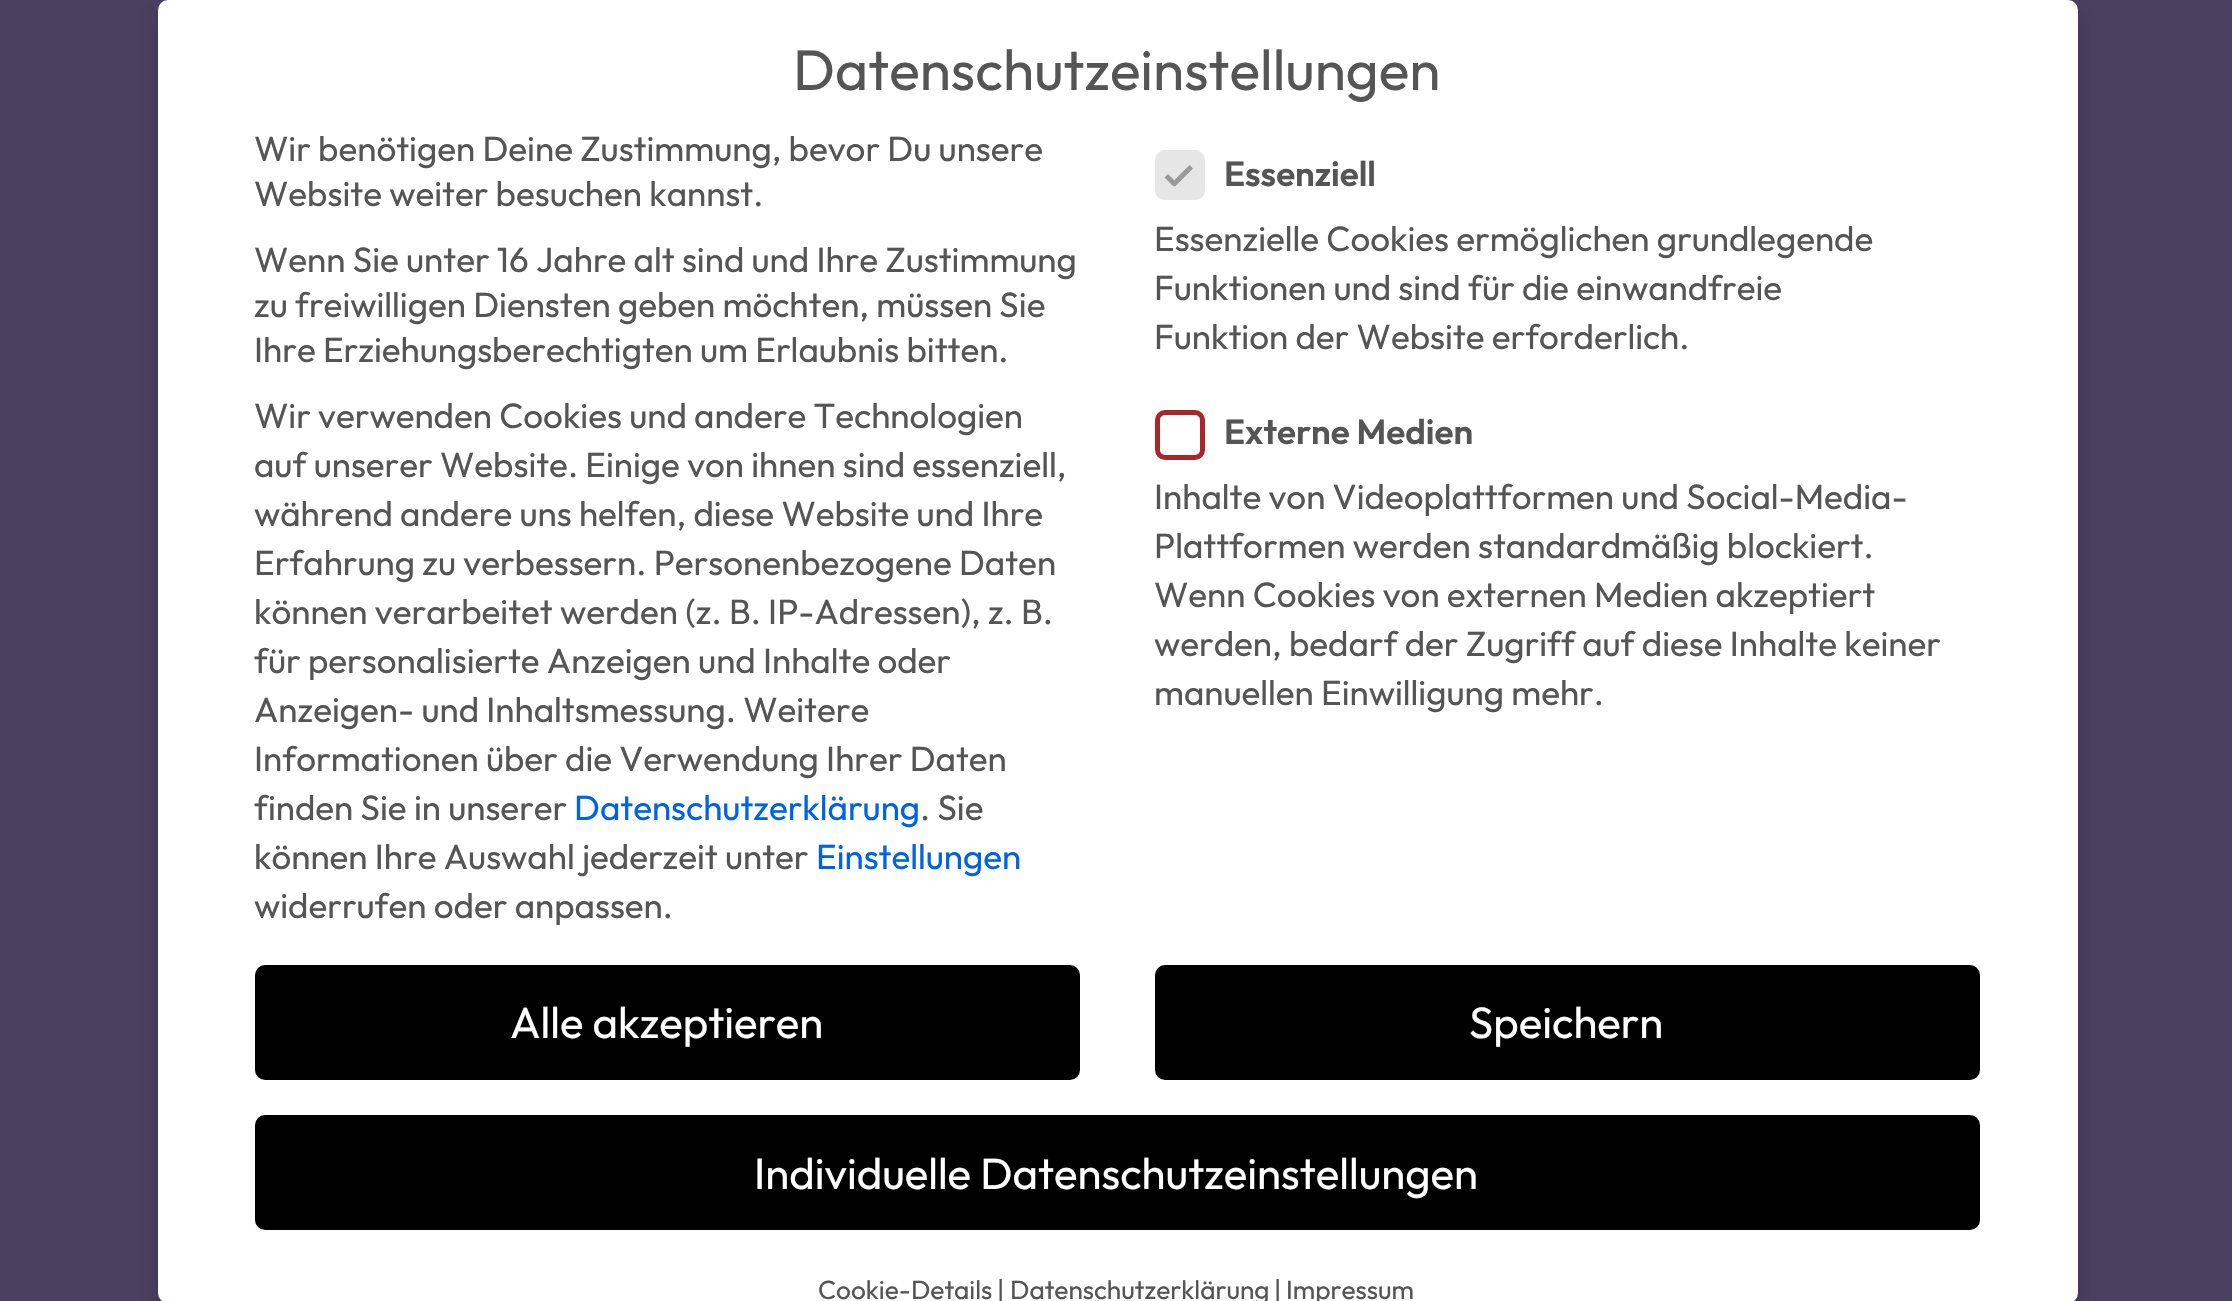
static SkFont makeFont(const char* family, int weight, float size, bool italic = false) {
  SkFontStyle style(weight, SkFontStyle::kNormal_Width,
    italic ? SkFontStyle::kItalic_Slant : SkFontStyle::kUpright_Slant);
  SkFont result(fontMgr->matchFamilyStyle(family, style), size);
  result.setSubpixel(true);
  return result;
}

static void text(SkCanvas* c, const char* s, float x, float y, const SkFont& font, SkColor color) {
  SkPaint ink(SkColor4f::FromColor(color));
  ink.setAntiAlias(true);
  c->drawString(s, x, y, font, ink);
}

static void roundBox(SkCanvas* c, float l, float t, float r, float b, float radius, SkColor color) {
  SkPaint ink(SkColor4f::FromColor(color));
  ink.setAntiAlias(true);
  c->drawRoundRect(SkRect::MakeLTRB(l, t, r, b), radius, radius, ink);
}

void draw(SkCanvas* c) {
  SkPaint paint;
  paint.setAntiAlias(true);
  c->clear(0xff4c4061);
  paint.setColor(0x33000000);
  paint.setMaskFilter(SkMaskFilter::MakeBlur(kNormal_SkBlurStyle, 10));
  c->drawRoundRect(SkRect::MakeLTRB(158, 10, 2078, 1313), 10, 10, paint);
  paint.setMaskFilter(nullptr);
  roundBox(c, 158, 0, 2078, 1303, 10, 0xffffffff);
  SkFont face1 = makeFont("Outfit", 100, 56.9f);
  text(c, "Datenschutzeinstellungen", 793, 90, face1, 0xff555555);
  SkFont face2 = makeFont("Outfit", 100, 35);
  text(c, "Wir benötigen Deine Zustimmung, bevor Du unsere", 254, 161, face2, 0xff555555);
  text(c, "Website weiter besuchen kannst.", 254, 206, face2, 0xff555555);
  text(c, "Wenn Sie unter 16 Jahre alt sind und Ihre Zustimmung", 254, 272, face2, 0xff555555);
  text(c, "zu freiwilligen Diensten geben möchten, müssen Sie", 254, 317, face2, 0xff555555);
  text(c, "Ihre Erziehungsberechtigten um Erlaubnis bitten.", 254, 362, face2, 0xff555555);
  text(c, "Wir verwenden Cookies und andere Technologien", 254, 428, face2, 0xff555555);
  text(c, "auf unserer Website. Einige von ihnen sind essenziell,", 254, 477, face2, 0xff555555);
  text(c, "während andere uns helfen, diese Website und Ihre", 254, 526, face2, 0xff555555);
  text(c, "Erfahrung zu verbessern. Personenbezogene Daten", 254, 575, face2, 0xff555555);
  text(c, "können verarbeitet werden (z. B. IP-Adressen), z. B.", 254, 624, face2, 0xff555555);
  text(c, "für personalisierte Anzeigen und Inhalte oder", 254, 673, face2, 0xff555555);
  text(c, "Anzeigen- und Inhaltsmessung. Weitere", 254, 722, face2, 0xff555555);
  text(c, "Informationen über die Verwendung Ihrer Daten", 254, 771, face2, 0xff555555);
  text(c, "finden Sie in unserer", 254, 820, face2, 0xff555555);
  text(c, "Datenschutzerklärung", 574, 820, face2, 0xff0063e3);
  text(c, ". Sie", 920, 820, face2, 0xff555555);
  text(c, "können Ihre Auswahl jederzeit unter", 254, 869, face2, 0xff555555);
  text(c, "Einstellungen", 816, 869, face2, 0xff0063e3);
  text(c, "widerrufen oder anpassen.", 254, 918, face2, 0xff555555);
  paint.setColor(0xffe6e6e6);
  c->drawRoundRect(SkRect::MakeLTRB(1157.5f, 152.5f, 1202.5f, 197.5f), 7.5f, 7.5f, paint);
  paint.setStyle(SkPaint::kStroke_Style);
  paint.setStrokeWidth(5);
  c->drawRoundRect(SkRect::MakeLTRB(1157.5f, 152.5f, 1202.5f, 197.5f), 7.5f, 7.5f, paint);
  paint.setStyle(SkPaint::kFill_Style);
  paint.setColor(0xff999999);
  c->drawPath(SkPathBuilder().moveTo(1189.5f, 165).lineTo(1193, 168.5f).lineTo(1175, 186.5f).lineTo(1171.5f, 183).close().detach(), paint);
  c->drawPath(SkPathBuilder().moveTo(1168, 174).lineTo(1177, 183).lineTo(1173.5f, 186.5f).lineTo(1164.5f, 177.5f).close().detach(), paint);
  SkFont face3 = makeFont("Outfit", 600, 35);
  text(c, "Essenziell", 1224, 186, face3, 0xff555555);
  text(c, "Essenzielle Cookies ermöglichen grundlegende", 1154, 251, face2, 0xff555555);
  text(c, "Funktionen und sind für die einwandfreie", 1154, 300, face2, 0xff555555);
  text(c, "Funktion der Website erforderlich.", 1154, 349, face2, 0xff555555);
  paint.setStyle(SkPaint::kStroke_Style);
  paint.setColor(0xffa72828);
  c->drawRoundRect(SkRect::MakeLTRB(1157.5f, 412.5f, 1202.5f, 457.5f), 7.5f, 7.5f, paint);
  text(c, "Externe Medien", 1224, 444, face3, 0xff555555);
  text(c, "Inhalte von Videoplattformen und Social-Media-", 1154, 509, face2, 0xff555555);
  text(c, "Plattformen werden standardmäßig blockiert.", 1154, 558, face2, 0xff555555);
  text(c, "Wenn Cookies von externen Medien akzeptiert", 1154, 607, face2, 0xff555555);
  text(c, "werden, bedarf der Zugriff auf diese Inhalte keiner", 1154, 656, face2, 0xff555555);
  text(c, "manuellen Einwilligung mehr.", 1154, 705, face2, 0xff555555);
  roundBox(c, 255, 965, 1080, 1080, 10, 0xff000000);
  SkFont face4 = makeFont("Outfit", 100, 43.75f);
  text(c, "Alle akzeptieren", 510, 1038, face4, 0xffffffff);
  roundBox(c, 1155, 965, 1980, 1080, 10, 0xff000000);
  text(c, "Speichern", 1469, 1038, face4, 0xffffffff);
  roundBox(c, 255, 1115, 1980, 1230, 10, 0xff000000);
  text(c, "Individuelle Datenschutzeinstellungen", 754, 1189, face4, 0xffffffff);
  SkFont face5 = makeFont("Outfit", 100, 26.25f);
  text(c, "Cookie-Details", 818, 1299, face5, 0xff555555);
  text(c, "|", 997, 1299, face5, 0xff555555);
  text(c, "Datenschutzerklärung", 1010, 1299, face5, 0xff555555);
  text(c, "|", 1274, 1299, face5, 0xff555555);
  text(c, "Impressum", 1286, 1299, face5, 0xff555555);
}
